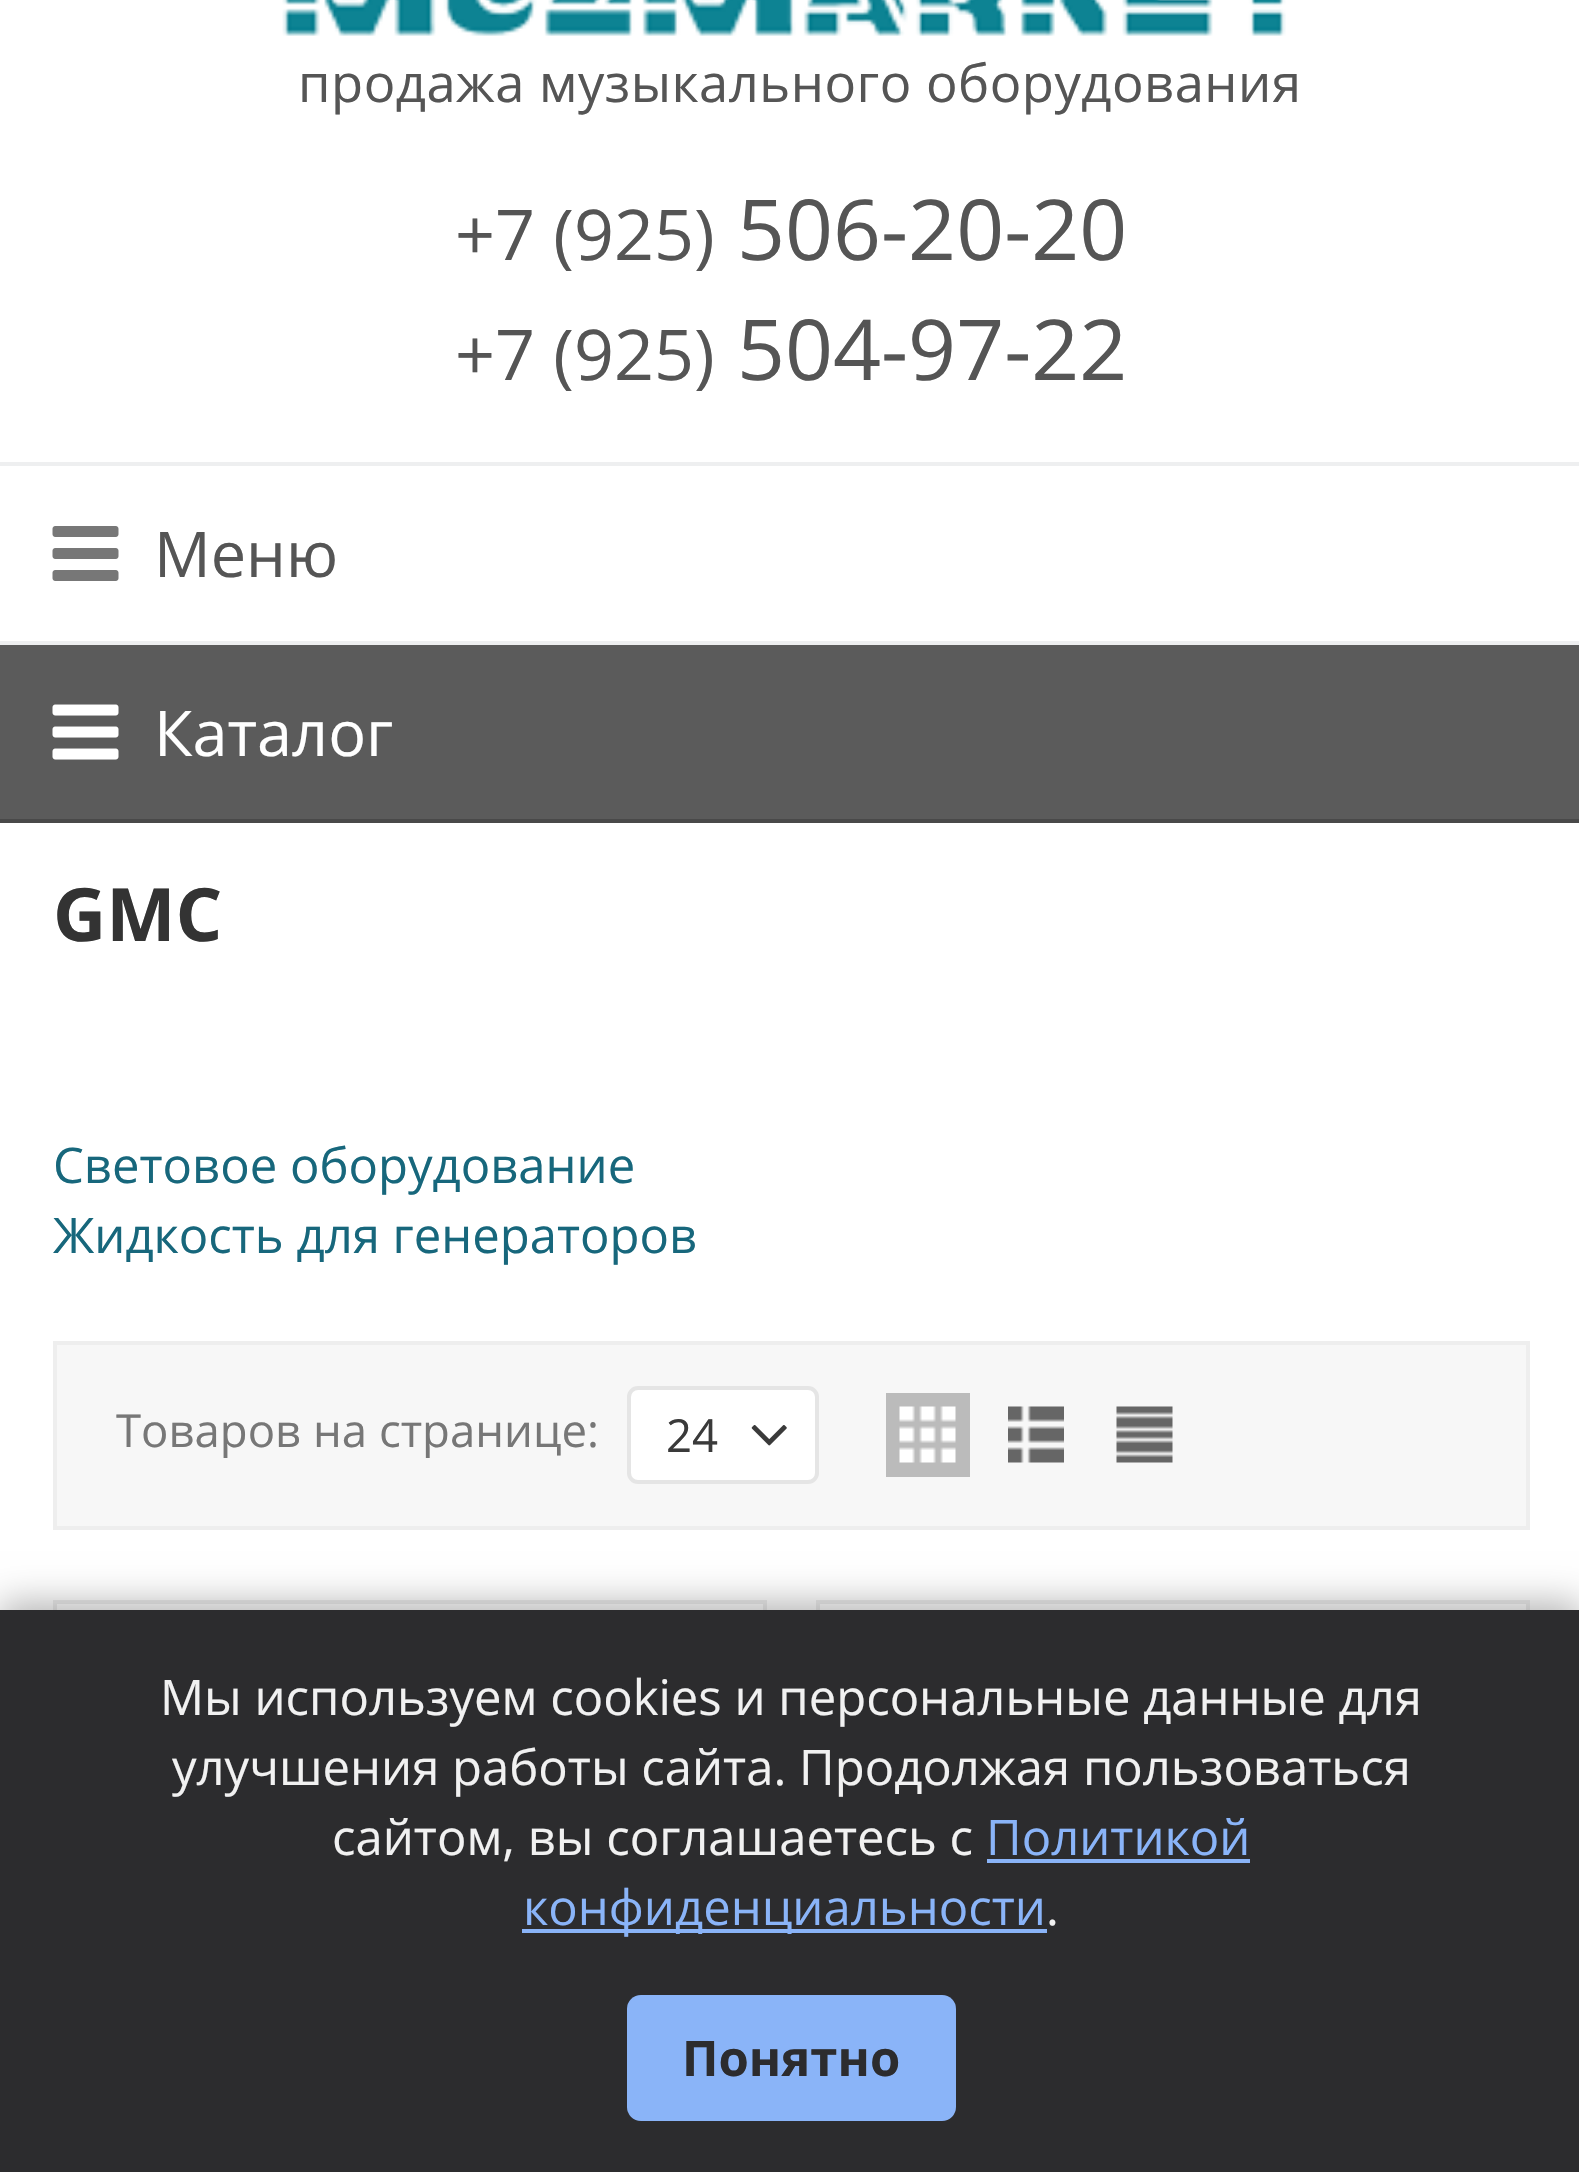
static SkFont makeFont(const char* family, int weight, float size, bool italic = false) {
  SkFontStyle style(weight, SkFontStyle::kNormal_Width,
    italic ? SkFontStyle::kItalic_Slant : SkFontStyle::kUpright_Slant);
  SkFont result(fontMgr->matchFamilyStyle(family, style), size);
  result.setSubpixel(true);
  return result;
}

static void text(SkCanvas* c, const char* s, float x, float y, const SkFont& font, SkColor color) {
  SkPaint ink(SkColor4f::FromColor(color));
  ink.setAntiAlias(true);
  c->drawString(s, x, y, font, ink);
}

static void spacedText(SkCanvas* c, const char* s, float x, float y, const SkFont& font, const SkPaint& ink, float letter, float word) {
  std::vector<SkGlyphID> glyphs(font.countText(s, strlen(s), SkTextEncoding::kUTF8));
  std::vector<float> xs(glyphs.size());
  font.textToGlyphs(s, strlen(s), SkTextEncoding::kUTF8, glyphs);
  font.getXPos(glyphs, xs, x);
  float extra = 0;
  for (size_t i = 0; i < glyphs.size(); i++) {
    xs[i] += extra;
    extra += letter + word * (glyphs[i] == font.unicharToGlyph(' '));
  }
  c->drawTextBlob(SkTextBlob::MakeFromPosHGlyphs(glyphs, xs, y, font), 0, 0, ink);
}

static void box(SkCanvas* c, float l, float t, float r, float b, SkColor color) {
  SkPaint ink(SkColor4f::FromColor(color));
  ink.setAntiAlias(true);
  c->drawRect(SkRect::MakeLTRB(l, t, r, b), ink);
}

static void roundBox(SkCanvas* c, float l, float t, float r, float b, float radius, SkColor color) {
  SkPaint ink(SkColor4f::FromColor(color));
  ink.setAntiAlias(true);
  c->drawRoundRect(SkRect::MakeLTRB(l, t, r, b), radius, radius, ink);
}

static void picture(SkCanvas* c, const char* path, float l, float t, float r, float b) {
  auto image = SkImages::DeferredFromEncodedData(SkData::MakeFromFileName(path));
  c->drawImageRect(image, SkRect::MakeLTRB(l, t, r, b), SkSamplingOptions());
}

void draw(SkCanvas* c) {
  SkPaint paint;
  paint.setAntiAlias(true);
  c->clear(0xffffffff);
  picture(c, "img_01.png", 282, 0, 1286, 36);
  SkFont face1 = makeFont("Open Sans", 400, 52.5f);
  paint.setColor(0xff555555);
  spacedText(c, "продажа музыкального оборудования", 298, 102, face1, paint, 0.5f, 0);
  SkFont face2 = makeFont("Open Sans", 400, 70);
  text(c, "+7 (925)", 455, 260, face2, 0xff555555);
  SkFont face3 = makeFont("Open Sans", 400, 84);
  text(c, "506-20-20", 737, 260, face3, 0xff555555);
  text(c, "+7 (925)", 455, 380, face2, 0xff555555);
  text(c, "504-97-22", 737, 380, face3, 0xff555555);
  box(c, 0, 462, 1579, 466, 0xffeeeff0);
  box(c, 0, 641, 1579, 645, 0xffeeeff0);
  picture(c, "img_02.png", 52, 526, 119, 581);
  SkFont face4 = makeFont("Open Sans", 400, 63);
  text(c, "Меню", 154, 577, face4, 0xff555555);
  box(c, 0, 645, 1579, 819, 0xff5b5b5b);
  box(c, 0, 819, 1579, 823, 0xff494949);
  picture(c, "img_03.png", 52, 704, 119, 760);
  text(c, "Каталог", 154, 756, face4, 0xffffffff);
  SkFont face5 = makeFont("Open Sans", 700, 73.5f);
  text(c, "GMC", 53, 941, face5, 0xff333333);
  SkFont face6 = makeFont("Open Sans", 400, 49);
  text(c, "Световое оборудование", 53, 1183, face6, 0xff17677c);
  text(c, "Жидкость для генераторов", 53, 1253, face6, 0xff17677c);
  paint.setColor(0xfff7f7f7);
  c->drawRect(SkRect::MakeLTRB(55, 1343, 1528, 1528), paint);
  paint.setStyle(SkPaint::kStroke_Style);
  paint.setStrokeWidth(4);
  paint.setColor(0xffeeeeee);
  c->drawRect(SkRect::MakeLTRB(55, 1343, 1528, 1528), paint);
  SkFont face7 = makeFont("Open Sans", 400, 45.5f);
  text(c, "Товаров на странице:", 116, 1447, face7, 0xff777777);
  paint.setStyle(SkPaint::kFill_Style);
  paint.setColor(0xffffffff);
  c->drawRoundRect(SkRect::MakeLTRB(629, 1388, 817, 1482), 9, 9, paint);
  paint.setStyle(SkPaint::kStroke_Style);
  paint.setColor(0xffe5e5e5);
  c->drawRoundRect(SkRect::MakeLTRB(629, 1388, 817, 1482), 9, 9, paint);
  text(c, "24", 666, 1452, face7, 0xff3a3a3a);
  picture(c, "img_04.png", 751, 1425, 787, 1446);
  box(c, 886, 1393, 970, 1477, 0xffbbbbbb);
  picture(c, "img_05.png", 899, 1406, 956, 1463);
  picture(c, "img_06.png", 1008, 1406, 1064, 1463);
  picture(c, "img_07.png", 1116, 1406, 1173, 1463);
  paint.setColor(0xffeeeeee);
  c->drawRect(SkRect::MakeLTRB(55, 1602, 765, 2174), paint);
  c->drawRect(SkRect::MakeLTRB(818, 1602, 1528, 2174), paint);
  paint.setStyle(SkPaint::kFill_Style);
  paint.setColor(0x4d000000);
  paint.setMaskFilter(SkMaskFilter::MakeBlur(kNormal_SkBlurStyle, 17.5f));
  c->drawRect(SkRect::MakeLTRB(0, 1603, 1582, 2167), paint);
  paint.setMaskFilter(nullptr);
  box(c, 0, 1610, 1579, 2172, 0xff2c2c2e);
  text(c, "Мы используем cookies и персональные данные для", 160, 1715, face6, 0xfff1f1f1);
  text(c, "улучшения работы сайта. Продолжая пользоваться", 172, 1785, face6, 0xfff1f1f1);
  text(c, "сайтом, вы соглашаетесь с", 332, 1855, face6, 0xfff1f1f1);
  text(c, "Политикой", 986, 1855, face6, 0xff8ab4f8);
  box(c, 987, 1859, 1250, 1863, 0xff8ab4f8);
  box(c, 522, 1929, 1047, 1933, 0xff8ab4f8);
  text(c, "конфиденциальности", 523, 1925, face6, 0xff8ab4f8);
  text(c, ".", 1046, 1925, face6, 0xfff1f1f1);
  roundBox(c, 627, 1995, 956, 2121, 14, 0xff8ab4f8);
  SkFont face8 = makeFont("Open Sans", 700, 49);
  text(c, "Понятно", 682, 2076, face8, 0xff2c2c2e);
}
